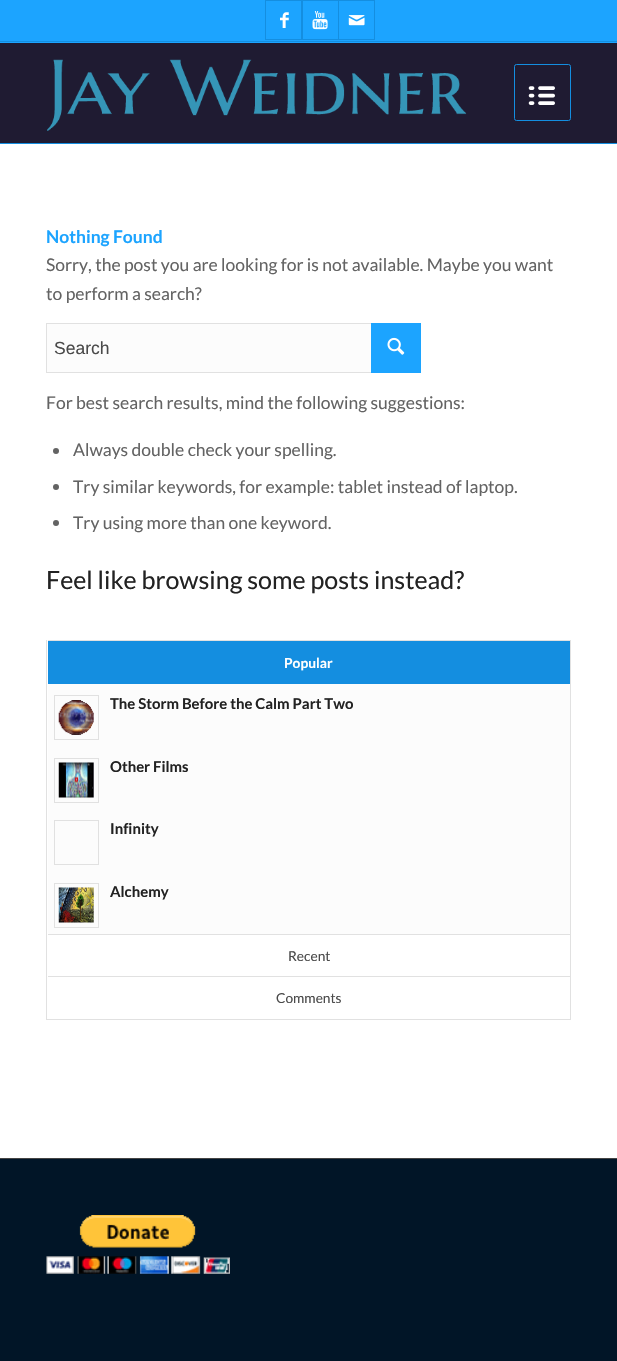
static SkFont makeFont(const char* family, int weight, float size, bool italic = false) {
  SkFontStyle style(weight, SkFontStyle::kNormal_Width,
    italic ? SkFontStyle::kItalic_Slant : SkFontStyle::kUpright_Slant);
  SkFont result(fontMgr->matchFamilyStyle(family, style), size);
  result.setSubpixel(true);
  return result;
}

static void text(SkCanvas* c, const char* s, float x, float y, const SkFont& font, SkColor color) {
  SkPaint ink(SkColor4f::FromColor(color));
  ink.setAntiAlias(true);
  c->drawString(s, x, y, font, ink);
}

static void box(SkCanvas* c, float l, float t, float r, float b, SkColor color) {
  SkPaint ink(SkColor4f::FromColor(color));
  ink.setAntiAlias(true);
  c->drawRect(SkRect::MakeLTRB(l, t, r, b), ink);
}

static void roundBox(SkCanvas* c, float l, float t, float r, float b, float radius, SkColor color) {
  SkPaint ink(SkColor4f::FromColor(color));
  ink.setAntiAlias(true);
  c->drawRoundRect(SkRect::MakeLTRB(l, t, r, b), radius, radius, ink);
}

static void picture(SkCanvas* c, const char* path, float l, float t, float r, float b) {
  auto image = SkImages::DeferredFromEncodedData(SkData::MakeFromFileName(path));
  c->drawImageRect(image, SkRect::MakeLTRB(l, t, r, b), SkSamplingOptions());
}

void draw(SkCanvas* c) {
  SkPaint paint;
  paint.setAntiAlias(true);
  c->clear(0xffffffff);
  box(c, 0, 0, 617, 43, 0xff1ca4ff);
  box(c, 0, 41, 617, 42, 0xff148ee0);
  paint.setStyle(SkPaint::kStroke_Style);
  paint.setStrokeWidth(1);
  paint.setColor(0xff148ee0);
  c->drawRect(SkRect::MakeLTRB(265.5f, 0.5f, 302.5f, 39.5f), paint);
  picture(c, "img_01.png", 280, 12, 289, 28);
  c->drawRect(SkRect::MakeLTRB(301.5f, 0.5f, 338.5f, 39.5f), paint);
  picture(c, "img_02.png", 312, 11, 328, 30);
  c->drawRect(SkRect::MakeLTRB(338.5f, 0.5f, 374.5f, 39.5f), paint);
  picture(c, "img_03.png", 348, 15, 365, 26);
  box(c, 0, 43, 617, 143, 0xff1f1b32);
  box(c, 0, 143, 617, 144, 0xff148ee0);
  picture(c, "img_04.png", 47, 59, 467, 131);
  c->drawRoundRect(SkRect::MakeLTRB(514.5f, 64.5f, 570.5f, 120.5f), 2, 2, paint);
  picture(c, "img_05.png", 528, 86, 555, 105);
  SkFont face1 = makeFont("Lato", 700, 17.5f);
  text(c, "Nothing Found", 46, 243, face1, 0xff1ca4ff);
  SkFont face2 = makeFont("Lato", 400, 17.5f);
  text(c, "Sorry, the post you are looking for is not available. Maybe you want", 46, 271, face2, 0xff636363);
  text(c, "to perform a search?", 46, 300, face2, 0xff636363);
  box(c, 47, 324, 371, 372, 0xfffcfcfc);
  paint.setColor(0xffe1e1e1);
  c->drawRect(SkRect::MakeLTRB(46.5f, 323.5f, 420.5f, 372.5f), paint);
  SkFont face3 = makeFont("Liberation Sans", 400, 17.5f);
  text(c, "Search", 54, 354, face3, 0xff4a4a4a);
  box(c, 371, 323, 421, 373, 0xff1ca4ff);
  picture(c, "img_06.png", 387, 337, 405, 355);
  text(c, "For best search results, mind the following suggestions:", 46, 409, face2, 0xff636363);
  paint.setStyle(SkPaint::kFill_Style);
  paint.setColor(0xff636363);
  c->drawCircle(56, 451, 3, paint);
  text(c, "Always double check your spelling.", 73, 456, face2, 0xff636363);
  c->drawCircle(56, 487, 3, paint);
  text(c, "Try similar keywords, for example: tablet instead of laptop.", 73, 493, face2, 0xff636363);
  c->drawCircle(56, 523, 3, paint);
  text(c, "Try using more than one keyword.", 73, 529, face2, 0xff636363);
  SkFont face4 = makeFont("Lato", 400, 25);
  text(c, "Feel like browsing some posts instead?", 46, 589, face4, 0xff222222);
  box(c, 570, 640, 571, 1020, 0xffe1e1e1);
  box(c, 46, 1019, 571, 1020, 0xffe1e1e1);
  box(c, 46, 640, 47, 1020, 0xffe1e1e1);
  box(c, 48, 641, 570, 684, 0xff148ee0);
  box(c, 48, 640, 570, 641, 0xffe1e1e1);
  SkFont face5 = makeFont("Lato", 700, 13.75f);
  text(c, "Popular", 284, 668, face5, 0xffffffff);
  roundBox(c, 48, 684, 570, 934, 2.5f, 0xfffcfcfc);
  paint.setStyle(SkPaint::kStroke_Style);
  paint.setColor(0xffe1e1e1);
  c->drawRect(SkRect::MakeLTRB(54.5f, 695.5f, 98.5f, 739.5f), paint);
  picture(c, "img_07.png", 58, 700, 94, 735);
  SkFont face6 = makeFont("Lato", 700, 14.9f);
  text(c, "The Storm Before the Calm Part Two", 110, 709, face6, 0xff222222);
  c->drawRect(SkRect::MakeLTRB(54.5f, 758.5f, 98.5f, 802.5f), paint);
  picture(c, "img_08.png", 58, 762, 94, 798);
  text(c, "Other Films", 110, 772, face6, 0xff222222);
  c->drawRect(SkRect::MakeLTRB(54.5f, 820.5f, 98.5f, 864.5f), paint);
  text(c, "Infinity", 110, 834, face6, 0xff222222);
  c->drawRect(SkRect::MakeLTRB(54.5f, 883.5f, 98.5f, 927.5f), paint);
  picture(c, "img_09.png", 58, 887, 94, 923);
  text(c, "Alchemy", 110, 897, face6, 0xff222222);
  box(c, 48, 934, 570, 935, 0xffe1e1e1);
  SkFont face7 = makeFont("Lato", 400, 13.75f);
  text(c, "Recent", 288, 961, face7, 0xff4a4a4a);
  box(c, 48, 976, 570, 977, 0xffe1e1e1);
  text(c, "Comments", 276, 1003, face7, 0xff4a4a4a);
  box(c, 0, 1159, 617, 1361, 0xff011527);
  box(c, 0, 1158, 617, 1159, 0xff444444);
  picture(c, "img_10.png", 46, 1215, 230, 1274);
}
